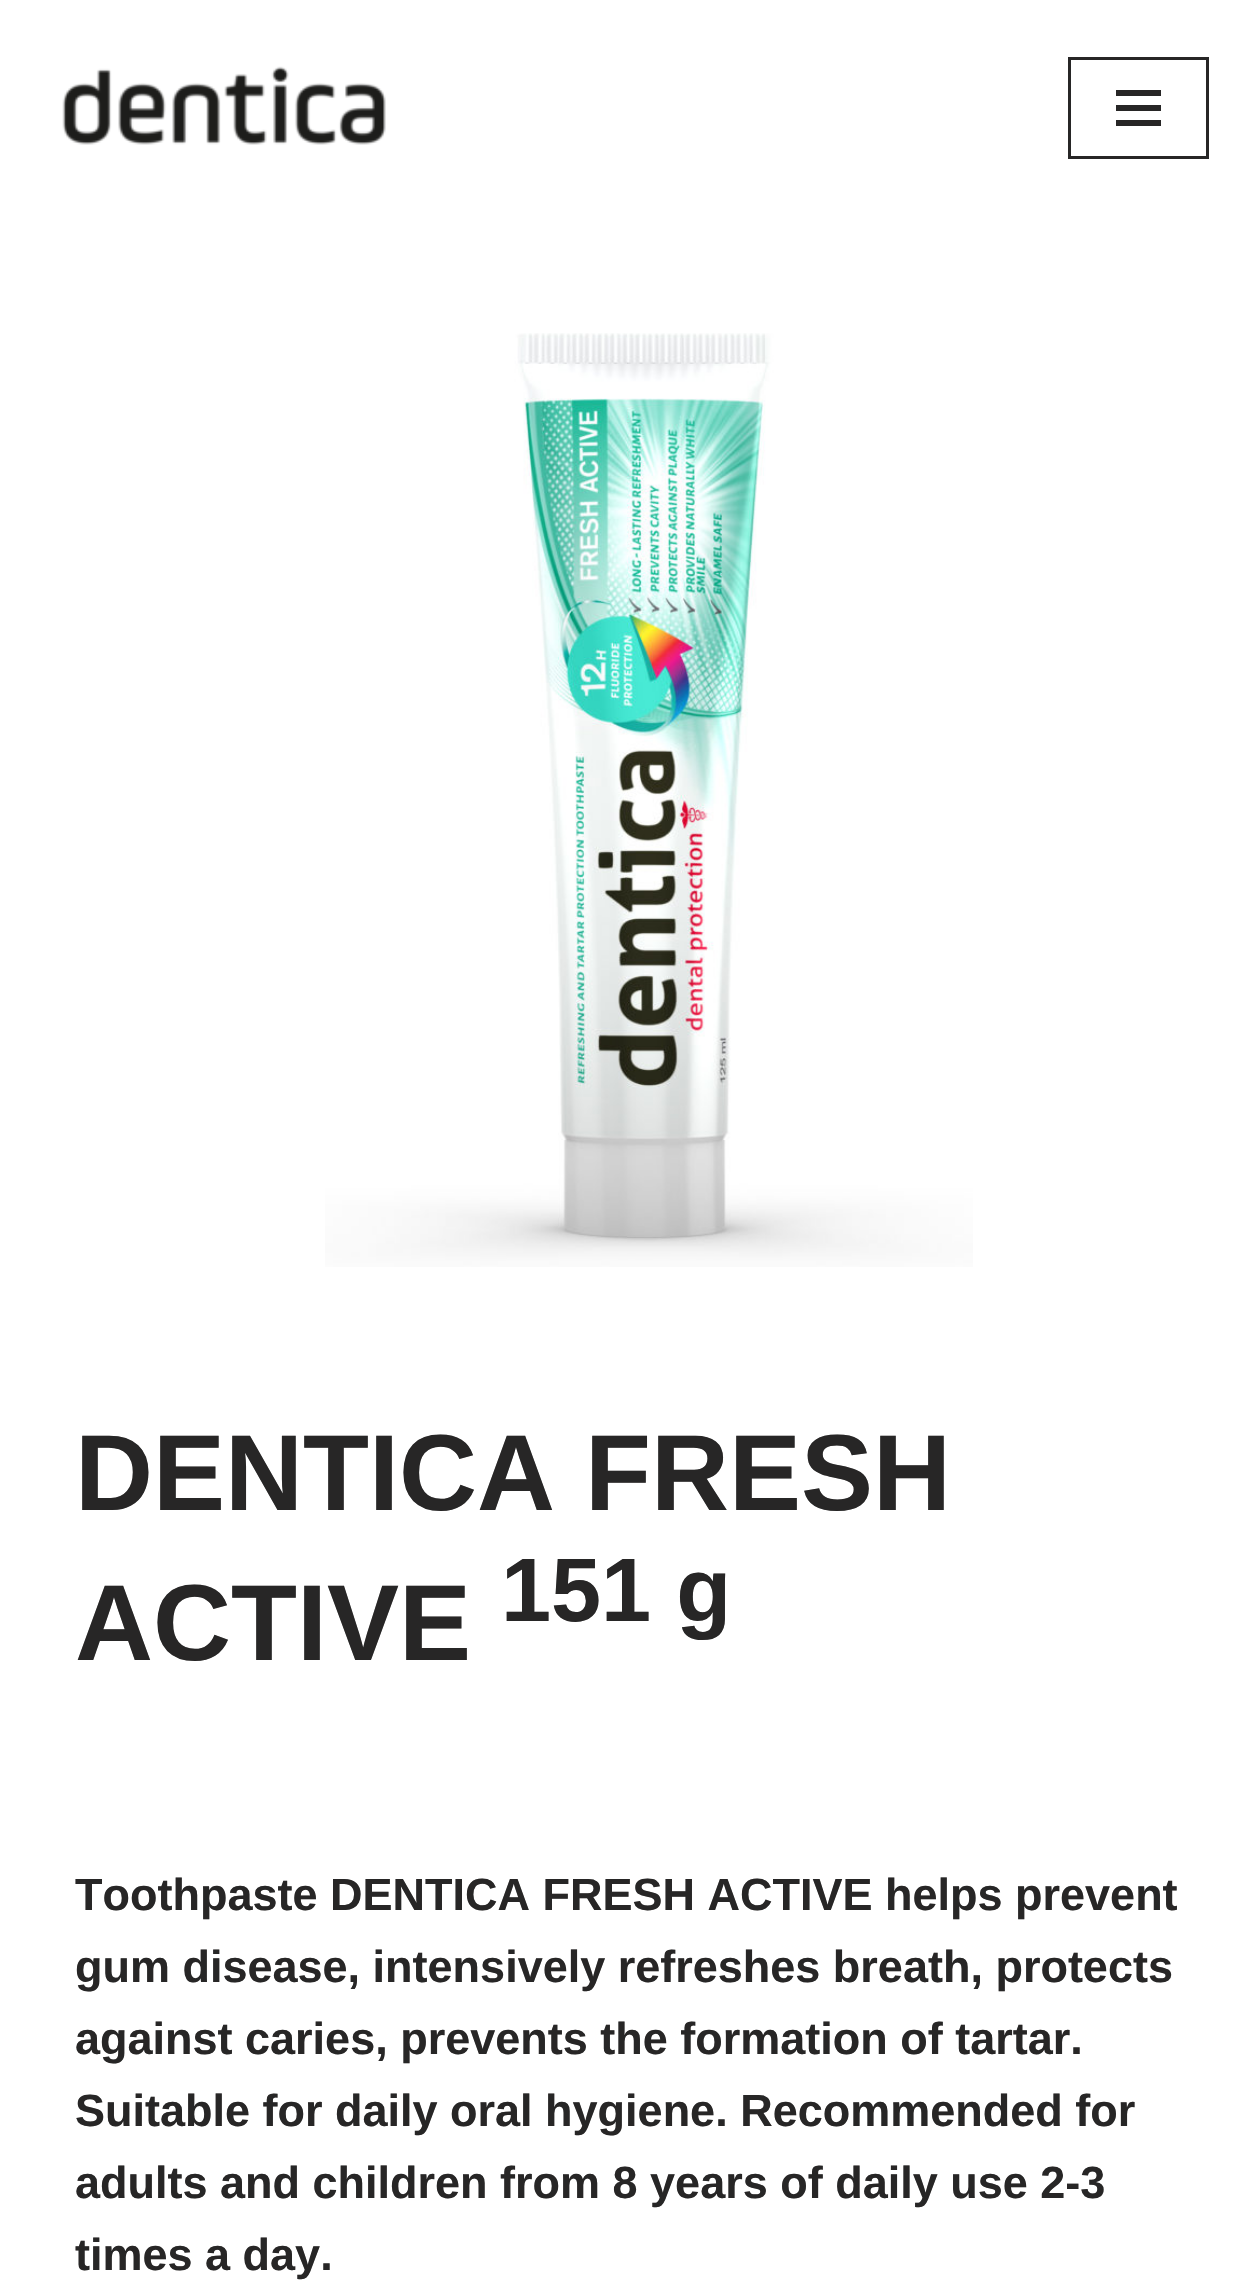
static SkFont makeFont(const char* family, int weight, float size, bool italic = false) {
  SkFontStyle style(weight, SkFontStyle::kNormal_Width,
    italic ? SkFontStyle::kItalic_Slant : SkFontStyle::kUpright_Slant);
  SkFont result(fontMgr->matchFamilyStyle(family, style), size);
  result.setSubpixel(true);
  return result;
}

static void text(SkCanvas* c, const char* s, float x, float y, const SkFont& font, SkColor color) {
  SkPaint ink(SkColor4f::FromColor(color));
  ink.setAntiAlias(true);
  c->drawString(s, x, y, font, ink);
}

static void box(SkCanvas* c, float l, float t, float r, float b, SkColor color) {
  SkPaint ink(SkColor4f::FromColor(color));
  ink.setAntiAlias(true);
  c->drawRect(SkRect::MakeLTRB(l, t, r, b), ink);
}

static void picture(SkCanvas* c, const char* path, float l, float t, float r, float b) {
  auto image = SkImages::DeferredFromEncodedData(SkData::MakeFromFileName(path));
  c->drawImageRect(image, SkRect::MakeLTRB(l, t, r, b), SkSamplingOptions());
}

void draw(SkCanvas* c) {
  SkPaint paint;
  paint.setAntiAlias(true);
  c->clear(0xffffffff);
  picture(c, "img_01.png", 62, 66, 386, 145);
  paint.setStyle(SkPaint::kStroke_Style);
  paint.setStrokeWidth(3);
  paint.setColor(0xff272626);
  c->drawRect(SkRect::MakeLTRB(1069.5f, 58.5f, 1207.5f, 157.5f), paint);
  box(c, 1116, 90, 1161, 96, 0xff272626);
  box(c, 1116, 105, 1161, 111, 0xff272626);
  box(c, 1116, 120, 1161, 126, 0xff272626);
  picture(c, "img_02.png", 325, 333, 973, 1267);
  SkFont face1 = makeFont("Liberation Sans", 700, 108);
  text(c, "DENTICA FRESH", 75, 1510, face1, 0xff272626);
  text(c, "ACTIVE", 75, 1660, face1, 0xff272626);
  SkFont face2 = makeFont("Liberation Sans", 700, 90);
  text(c, "151 g", 501, 1621, face2, 0xff272626);
  SkFont face3 = makeFont("Liberation Sans", 700, 45);
  text(c, "Toothpaste DENTICA FRESH ACTIVE helps prevent", 75, 1910, face3, 0xff272626);
  text(c, "gum disease, intensively refreshes breath, protects", 75, 1982, face3, 0xff272626);
  text(c, "against caries, prevents the formation of tartar.", 75, 2054, face3, 0xff272626);
  text(c, "Suitable for daily oral hygiene. Recommended for", 75, 2126, face3, 0xff272626);
  text(c, "adults and children from 8 years of daily use 2-3", 75, 2198, face3, 0xff272626);
  text(c, "times a day.", 75, 2270, face3, 0xff272626);
}
